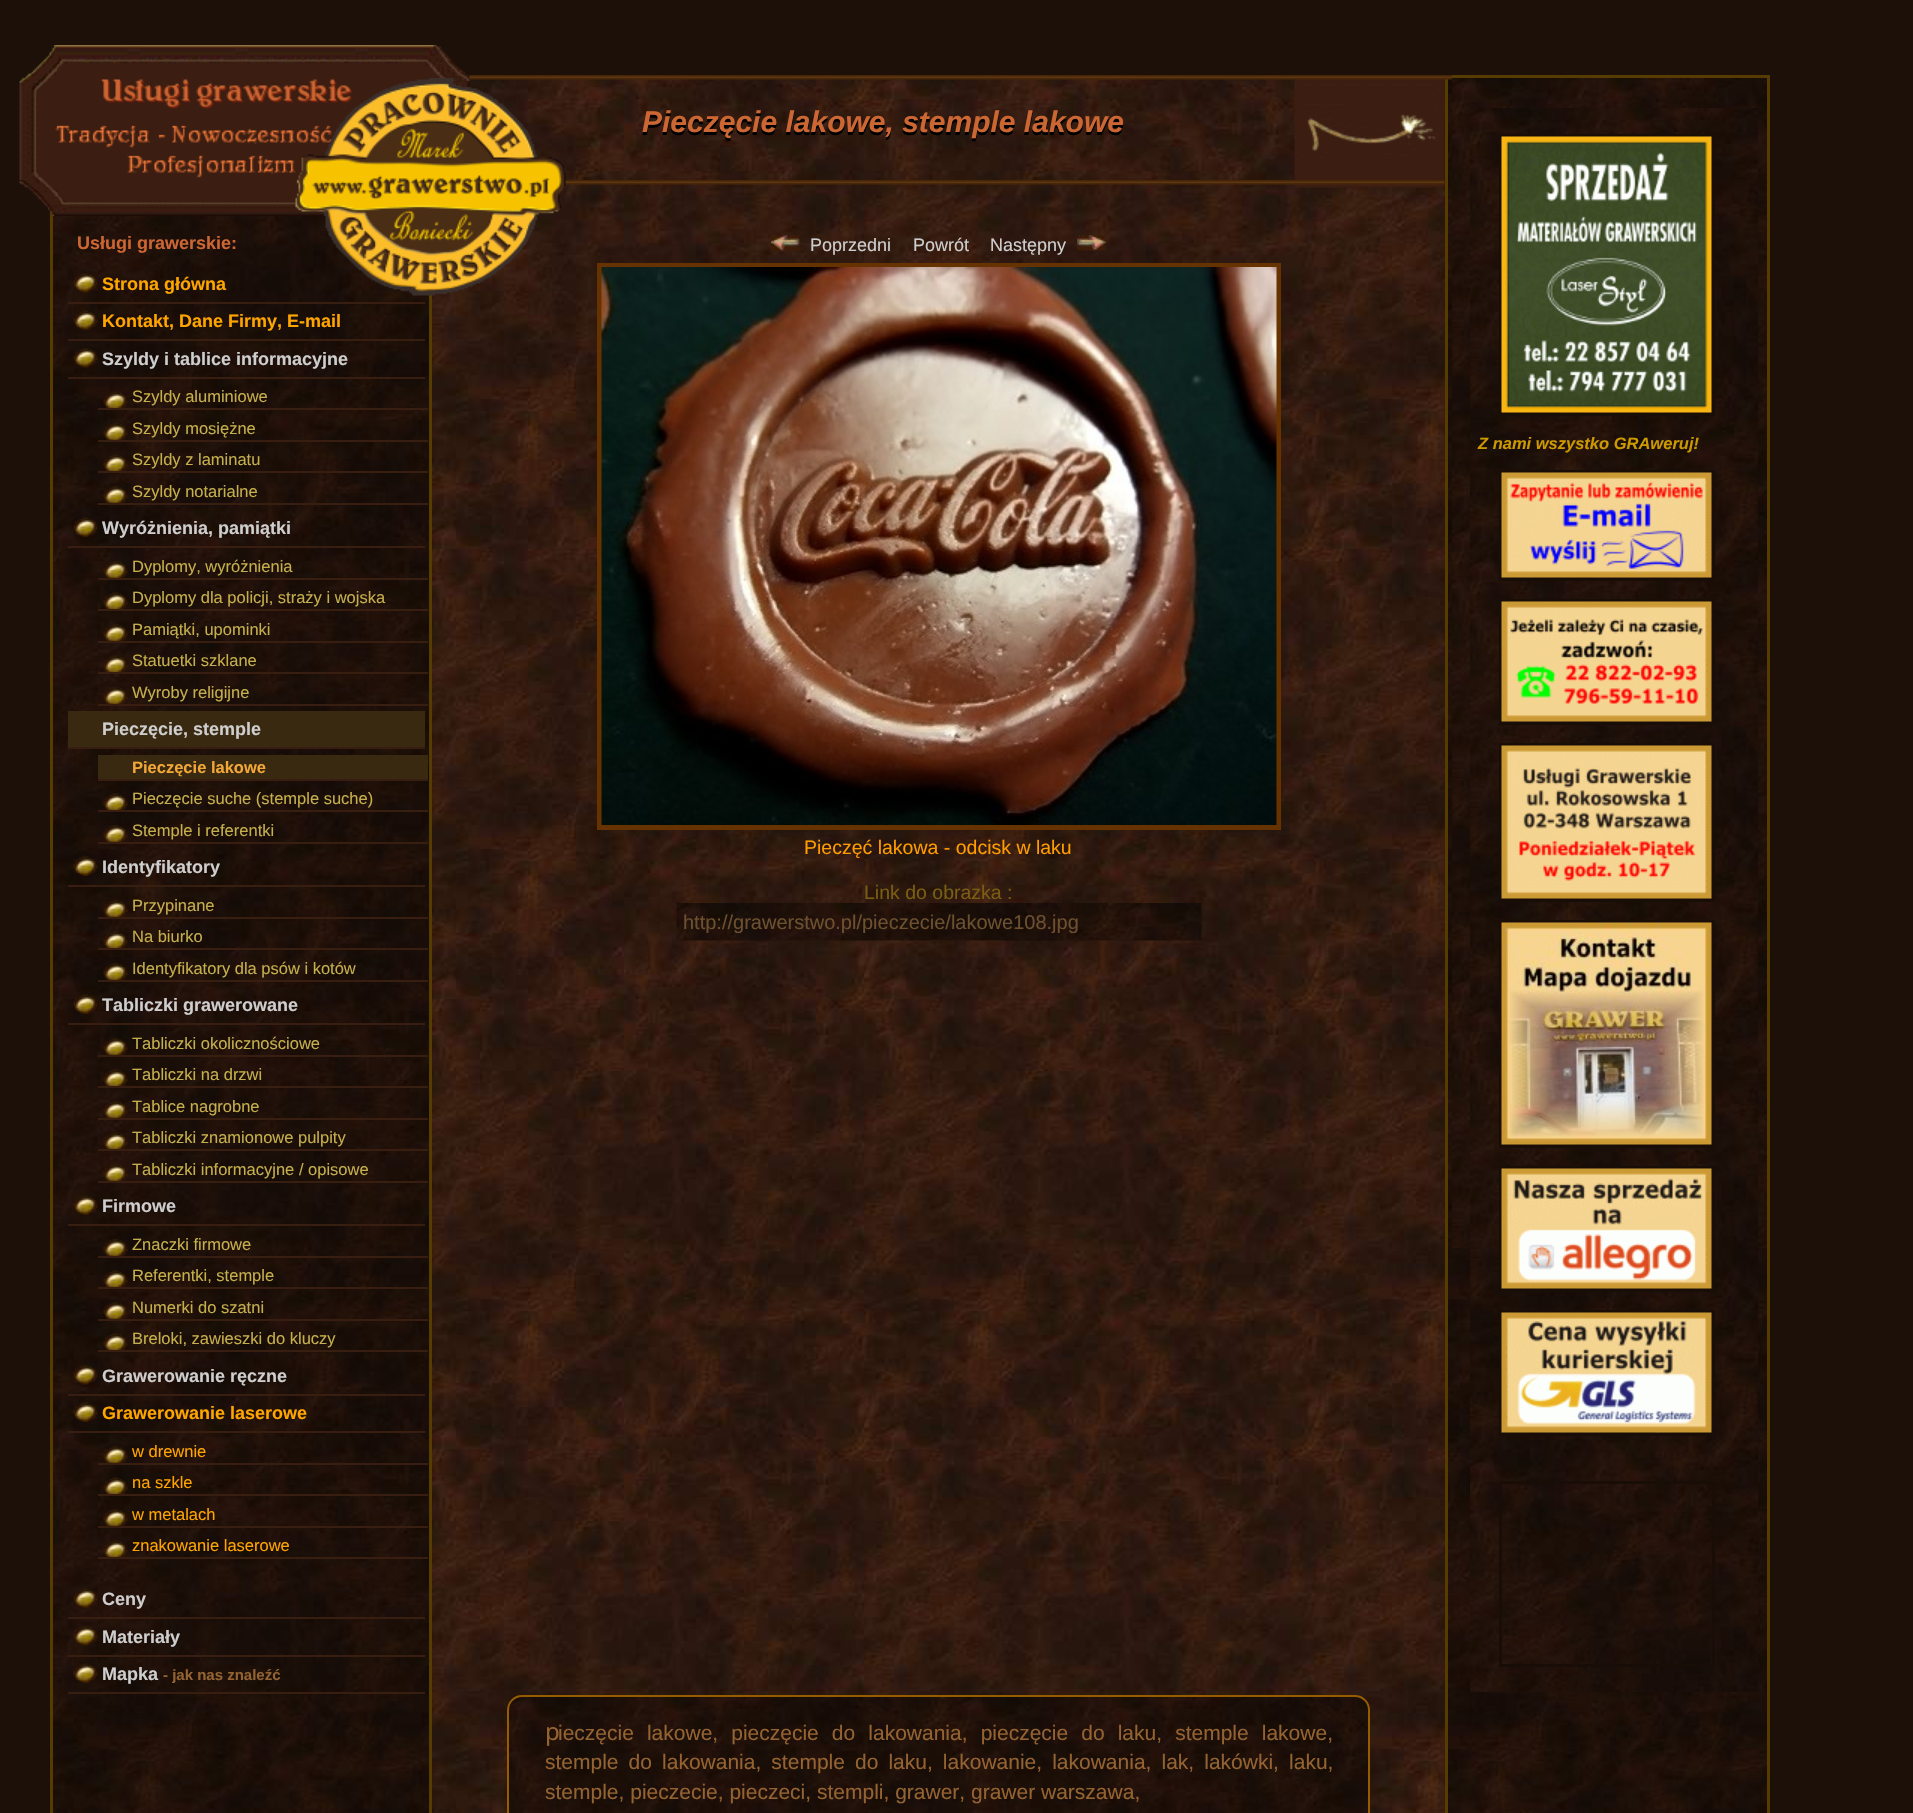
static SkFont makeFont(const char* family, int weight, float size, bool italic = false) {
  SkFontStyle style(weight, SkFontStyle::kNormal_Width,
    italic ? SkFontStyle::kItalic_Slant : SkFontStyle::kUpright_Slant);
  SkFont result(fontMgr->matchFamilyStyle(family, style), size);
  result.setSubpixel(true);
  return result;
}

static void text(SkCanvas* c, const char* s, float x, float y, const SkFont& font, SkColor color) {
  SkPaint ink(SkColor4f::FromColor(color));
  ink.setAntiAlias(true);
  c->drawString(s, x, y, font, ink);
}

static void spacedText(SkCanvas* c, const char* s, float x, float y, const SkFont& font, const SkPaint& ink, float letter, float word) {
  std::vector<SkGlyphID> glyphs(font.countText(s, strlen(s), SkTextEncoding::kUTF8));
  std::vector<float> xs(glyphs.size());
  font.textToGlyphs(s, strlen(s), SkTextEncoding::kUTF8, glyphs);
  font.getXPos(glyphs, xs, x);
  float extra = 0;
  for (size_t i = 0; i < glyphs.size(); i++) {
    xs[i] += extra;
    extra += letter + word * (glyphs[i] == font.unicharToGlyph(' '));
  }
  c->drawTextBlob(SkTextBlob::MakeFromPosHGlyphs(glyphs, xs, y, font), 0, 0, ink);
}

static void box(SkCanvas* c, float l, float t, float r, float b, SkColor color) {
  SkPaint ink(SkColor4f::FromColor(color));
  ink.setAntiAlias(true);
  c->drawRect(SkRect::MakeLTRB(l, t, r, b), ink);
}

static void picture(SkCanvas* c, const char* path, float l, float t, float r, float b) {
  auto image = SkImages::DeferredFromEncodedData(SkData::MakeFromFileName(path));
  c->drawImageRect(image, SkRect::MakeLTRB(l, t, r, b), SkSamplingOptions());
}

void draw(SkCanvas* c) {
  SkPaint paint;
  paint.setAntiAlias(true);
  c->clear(0xff1d1008);
  picture(c, "img_01.png", 49, 79, 1767, 1813);
  box(c, 1767, 75, 1770, 1813, 0xff563c00);
  box(c, 50, 211, 53, 1813, 0xff563c00);
  picture(c, "img_05.png", 432, 75, 1445, 1813);
  picture(c, "img_02.png", 19, 45, 470, 216);
  box(c, 1445, 75, 1448, 1813, 0xff563c00);
  picture(c, "img_11.png", 1294, 79, 1445, 188);
  picture(c, "img_03.png", 469, 75, 1452, 80);
  box(c, 429, 295, 432, 1813, 0xff563c00);
  picture(c, "img_12.png", 565, 180, 1445, 185);
  picture(c, "img_04.png", 295, 78, 566, 296);
  SkFont face1 = makeFont("Liberation Sans", 700, 30, true);
  text(c, "Pieczęcie lakowe, stemple lakowe", 642, 135, face1, 0xff000000);
  text(c, "Pieczęcie lakowe, stemple lakowe", 642, 132, face1, 0xffcc6633);
  picture(c, "img_06.png", 771, 235, 800, 251);
  SkFont face2 = makeFont("Liberation Sans", 400, 18);
  text(c, "Poprzedni", 810, 251, face2, 0xffcecece);
  text(c, "Powrót", 913, 251, face2, 0xffcecece);
  text(c, "Następny", 990, 251, face2, 0xffcecece);
  picture(c, "img_07.png", 1077, 235, 1106, 251);
  paint.setStyle(SkPaint::kStroke_Style);
  paint.setStrokeWidth(5);
  paint.setColor(0xff663300);
  c->drawRect(SkRect::MakeLTRB(599.5f, 265.5f, 1278.5f, 827.5f), paint);
  picture(c, "img_08.png", 601, 267, 1277, 825);
  SkFont face3 = makeFont("Liberation Sans", 400, 19.5f);
  text(c, "Pieczęć lakowa - odcisk w laku", 804, 854, face3, 0xffff9c00);
  text(c, "Link do obrazka :", 864, 899, face3, 0xff7a5d11);
  picture(c, "img_09.png", 676, 903, 1202, 941);
  c->save();
  c->clipRect(SkRect::MakeLTRB(684, 911, 1194, 933));
  SkFont face4 = makeFont("Liberation Sans", 400, 20);
  text(c, "http://grawerstwo.pl/pieczecie/lakowe108.jpg", 683, 929, face4, 0xff6c502f);
  c->restore();
  picture(c, "img_10.png", 507, 1695, 1370, 1813);
  paint.setStrokeWidth(2);
  paint.setColor(0xff965c00);
  c->drawRoundRect(SkRect::MakeLTRB(508, 1696, 1369, 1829), 14, 14, paint);
  SkFont face5 = makeFont("Noto Sans", 400, 24);
  text(c, "p", 545, 1740, face5, 0xff946331);
  SkFont face6 = makeFont("Liberation Sans", 400, 21);
  paint.setStyle(SkPaint::kFill_Style);
  paint.setColor(0xff946331);
  spacedText(c, "ieczęcie lakowe, pieczęcie do lakowania, pieczęcie do laku, stemple lakowe,", 558, 1740, face6, paint, 0, 7.25f);
  spacedText(c, "stemple do lakowania, stemple do laku, lakowanie, lakowania, lak, lakówki, laku,", 545, 1769, face6, paint, 0, 4.25f);
  text(c, "stemple, pieczecie, pieczeci, stempli, grawer, grawer warszawa,", 545, 1799, face6, 0xff946331);
  SkFont face7 = makeFont("Liberation Sans", 700, 18);
  text(c, "Usługi grawerskie:", 77, 249, face7, 0xffcc6633);
  picture(c, "img_13.png", 73, 273, 98, 293);
  box(c, 68, 302, 425, 304, 0xff381e11);
  text(c, "Strona główna", 102, 290, face7, 0xffffa500);
  picture(c, "img_14.png", 73, 310, 98, 330);
  box(c, 68, 339, 425, 341, 0xff381e11);
  text(c, "Kontakt, Dane Firmy, E-mail", 102, 327, face7, 0xffffa500);
  picture(c, "img_15.png", 73, 348, 98, 368);
  box(c, 68, 377, 425, 379, 0xff381e11);
  text(c, "Szyldy i tablice informacyjne", 102, 365, face7, 0xffcecece);
  picture(c, "img_16.png", 103, 391, 128, 408);
  box(c, 98, 408, 428, 410, 0xff381e11);
  SkFont face8 = makeFont("Liberation Sans", 400, 16.5f);
  text(c, "Szyldy aluminiowe", 132, 402, face8, 0xffc5af4c);
  picture(c, "img_17.png", 103, 423, 128, 440);
  box(c, 98, 440, 428, 442, 0xff381e11);
  text(c, "Szyldy mosiężne", 132, 434, face8, 0xffc5af4c);
  picture(c, "img_18.png", 103, 454, 128, 471);
  box(c, 98, 471, 428, 473, 0xff381e11);
  text(c, "Szyldy z laminatu", 132, 465, face8, 0xffc5af4c);
  picture(c, "img_19.png", 103, 486, 128, 503);
  box(c, 98, 503, 428, 505, 0xff381e11);
  text(c, "Szyldy notarialne", 132, 497, face8, 0xffc5af4c);
  picture(c, "img_20.png", 73, 517, 98, 537);
  box(c, 68, 546, 425, 548, 0xff381e11);
  text(c, "Wyróżnienia, pamiątki", 102, 534, face7, 0xffcecece);
  picture(c, "img_21.png", 103, 561, 128, 578);
  box(c, 98, 578, 428, 580, 0xff381e11);
  text(c, "Dyplomy, wyróżnienia", 132, 572, face8, 0xffc5af4c);
  picture(c, "img_22.png", 103, 592, 128, 609);
  box(c, 98, 609, 428, 611, 0xff381e11);
  text(c, "Dyplomy dla policji, straży i wojska", 132, 603, face8, 0xffc5af4c);
  picture(c, "img_23.png", 103, 624, 128, 641);
  box(c, 98, 641, 428, 643, 0xff381e11);
  text(c, "Pamiątki, upominki", 132, 635, face8, 0xffc5af4c);
  picture(c, "img_24.png", 103, 655, 128, 672);
  box(c, 98, 672, 428, 674, 0xff381e11);
  text(c, "Statuetki szklane", 132, 666, face8, 0xffc5af4c);
  picture(c, "img_25.png", 103, 687, 128, 704);
  box(c, 98, 704, 428, 706, 0xff381e11);
  text(c, "Wyroby religijne", 132, 698, face8, 0xffc5af4c);
  box(c, 68, 711, 425, 747, 0xff392911);
  box(c, 68, 747, 425, 749, 0xff381e11);
  text(c, "Pieczęcie, stemple", 102, 735, face7, 0xffcecece);
  box(c, 98, 755, 428, 779, 0xff392911);
  box(c, 98, 779, 428, 781, 0xff381e11);
  SkFont face9 = makeFont("Liberation Sans", 700, 16.5f);
  text(c, "Pieczęcie lakowe", 132, 773, face9, 0xfff2a736);
  picture(c, "img_26.png", 103, 793, 128, 810);
  box(c, 98, 810, 428, 812, 0xff381e11);
  text(c, "Pieczęcie suche (stemple suche)", 132, 804, face8, 0xffc5af4c);
  picture(c, "img_27.png", 103, 825, 128, 842);
  box(c, 98, 842, 428, 844, 0xff381e11);
  text(c, "Stemple i referentki", 132, 836, face8, 0xffc5af4c);
  picture(c, "img_28.png", 73, 856, 98, 876);
  box(c, 68, 885, 425, 887, 0xff381e11);
  text(c, "Identyfikatory", 102, 873, face7, 0xffcecece);
  picture(c, "img_29.png", 103, 900, 128, 917);
  box(c, 98, 917, 428, 919, 0xff381e11);
  text(c, "Przypinane", 132, 911, face8, 0xffc5af4c);
  picture(c, "img_30.png", 103, 931, 128, 948);
  box(c, 98, 948, 428, 950, 0xff381e11);
  text(c, "Na biurko", 132, 942, face8, 0xffc5af4c);
  picture(c, "img_31.png", 103, 963, 128, 980);
  box(c, 98, 980, 428, 982, 0xff381e11);
  text(c, "Identyfikatory dla psów i kotów", 132, 974, face8, 0xffc5af4c);
  picture(c, "img_32.png", 73, 994, 98, 1014);
  box(c, 68, 1023, 425, 1025, 0xff381e11);
  text(c, "Tabliczki grawerowane", 102, 1011, face7, 0xffcecece);
  picture(c, "img_33.png", 103, 1038, 128, 1055);
  box(c, 98, 1055, 428, 1057, 0xff381e11);
  text(c, "Tabliczki okolicznościowe", 132, 1049, face8, 0xffc5af4c);
  picture(c, "img_34.png", 103, 1069, 128, 1086);
  box(c, 98, 1086, 428, 1088, 0xff381e11);
  text(c, "Tabliczki na drzwi", 132, 1080, face8, 0xffc5af4c);
  picture(c, "img_35.png", 103, 1101, 128, 1118);
  box(c, 98, 1118, 428, 1120, 0xff381e11);
  text(c, "Tablice nagrobne", 132, 1112, face8, 0xffc5af4c);
  picture(c, "img_36.png", 103, 1132, 128, 1149);
  box(c, 98, 1149, 428, 1151, 0xff381e11);
  text(c, "Tabliczki znamionowe pulpity", 132, 1143, face8, 0xffc5af4c);
  picture(c, "img_37.png", 103, 1164, 128, 1181);
  box(c, 98, 1181, 428, 1183, 0xff381e11);
  text(c, "Tabliczki informacyjne / opisowe", 132, 1175, face8, 0xffc5af4c);
  picture(c, "img_38.png", 73, 1195, 98, 1215);
  box(c, 68, 1224, 425, 1226, 0xff381e11);
  text(c, "Firmowe", 102, 1212, face7, 0xffcecece);
  picture(c, "img_39.png", 103, 1239, 128, 1256);
  box(c, 98, 1256, 428, 1258, 0xff381e11);
  text(c, "Znaczki firmowe", 132, 1250, face8, 0xffc5af4c);
  picture(c, "img_40.png", 103, 1270, 128, 1287);
  box(c, 98, 1287, 428, 1289, 0xff381e11);
  text(c, "Referentki, stemple", 132, 1281, face8, 0xffc5af4c);
  picture(c, "img_41.png", 103, 1302, 128, 1319);
  box(c, 98, 1319, 428, 1321, 0xff381e11);
  text(c, "Numerki do szatni", 132, 1313, face8, 0xffc5af4c);
  picture(c, "img_42.png", 103, 1333, 128, 1350);
  box(c, 98, 1350, 428, 1352, 0xff381e11);
  text(c, "Breloki, zawieszki do kluczy", 132, 1344, face8, 0xffc5af4c);
  picture(c, "img_43.png", 73, 1365, 98, 1385);
  box(c, 68, 1394, 425, 1396, 0xff381e11);
  text(c, "Grawerowanie ręczne", 102, 1382, face7, 0xffcecece);
  picture(c, "img_44.png", 73, 1402, 98, 1422);
  box(c, 68, 1431, 425, 1433, 0xff381e11);
  text(c, "Grawerowanie laserowe", 102, 1419, face7, 0xffffa500);
  picture(c, "img_45.png", 103, 1446, 128, 1463);
  box(c, 98, 1463, 428, 1465, 0xff381e11);
  text(c, "w drewnie", 132, 1457, face8, 0xffffa500);
  picture(c, "img_46.png", 103, 1477, 128, 1494);
  box(c, 98, 1494, 428, 1496, 0xff381e11);
  text(c, "na szkle", 132, 1488, face8, 0xffffa500);
  picture(c, "img_47.png", 103, 1509, 128, 1526);
  box(c, 98, 1526, 428, 1528, 0xff381e11);
  text(c, "w metalach", 132, 1520, face8, 0xffffa500);
  picture(c, "img_48.png", 103, 1540, 128, 1557);
  box(c, 98, 1557, 428, 1559, 0xff381e11);
  text(c, "znakowanie laserowe", 132, 1551, face8, 0xffffa500);
  picture(c, "img_49.png", 73, 1588, 98, 1608);
  box(c, 68, 1617, 425, 1619, 0xff381e11);
  text(c, "Ceny", 102, 1605, face7, 0xffcecece);
  picture(c, "img_50.png", 73, 1626, 98, 1646);
  box(c, 68, 1655, 425, 1657, 0xff381e11);
  text(c, "Materiały", 102, 1643, face7, 0xffcecece);
  picture(c, "img_51.png", 73, 1663, 98, 1683);
  box(c, 68, 1692, 425, 1694, 0xff381e11);
  text(c, "Mapka", 102, 1680, face7, 0xffcecece);
  SkFont face10 = makeFont("Liberation Sans", 700, 15);
  text(c, "- jak nas znaleźć", 163, 1680, face10, 0xff946331);
  picture(c, "img_52.png", 1452, 78, 1767, 1248);
  box(c, 1452, 75, 1767, 78, 0xff563c00);
  picture(c, "img_53.png", 1470, 108, 1758, 1692);
  paint.setStyle(SkPaint::kStroke_Style);
  paint.setStrokeWidth(3);
  paint.setColor(0xff180d07);
  c->drawRect(SkRect::MakeLTRB(1500.5f, 135.5f, 1713.5f, 414.5f), paint);
  picture(c, "img_54.png", 1501, 136, 1712, 413);
  SkFont face11 = makeFont("Liberation Sans", 700, 16.5f, true);
  text(c, "Z nami wszystko GRAweruj!", 1478, 449, face11, 0xffcc9900);
  c->drawRect(SkRect::MakeLTRB(1500.5f, 471.5f, 1713.5f, 579.5f), paint);
  picture(c, "img_55.png", 1501, 472, 1712, 578);
  c->drawRect(SkRect::MakeLTRB(1500.5f, 600.5f, 1713.5f, 723.5f), paint);
  picture(c, "img_56.png", 1501, 601, 1712, 722);
  c->drawRect(SkRect::MakeLTRB(1500.5f, 744.5f, 1713.5f, 900.5f), paint);
  picture(c, "img_57.png", 1501, 745, 1712, 899);
  c->drawRect(SkRect::MakeLTRB(1500.5f, 921.5f, 1713.5f, 1146.5f), paint);
  picture(c, "img_58.png", 1501, 922, 1712, 1145);
  c->drawRect(SkRect::MakeLTRB(1500.5f, 1167.5f, 1713.5f, 1290.5f), paint);
  picture(c, "img_59.png", 1501, 1168, 1712, 1289);
  c->drawRect(SkRect::MakeLTRB(1500.5f, 1311.5f, 1713.5f, 1434.5f), paint);
  picture(c, "img_60.png", 1501, 1312, 1712, 1433);
  c->drawRect(SkRect::MakeLTRB(1500.5f, 1482.5f, 1713.5f, 1665.5f), paint);
}
